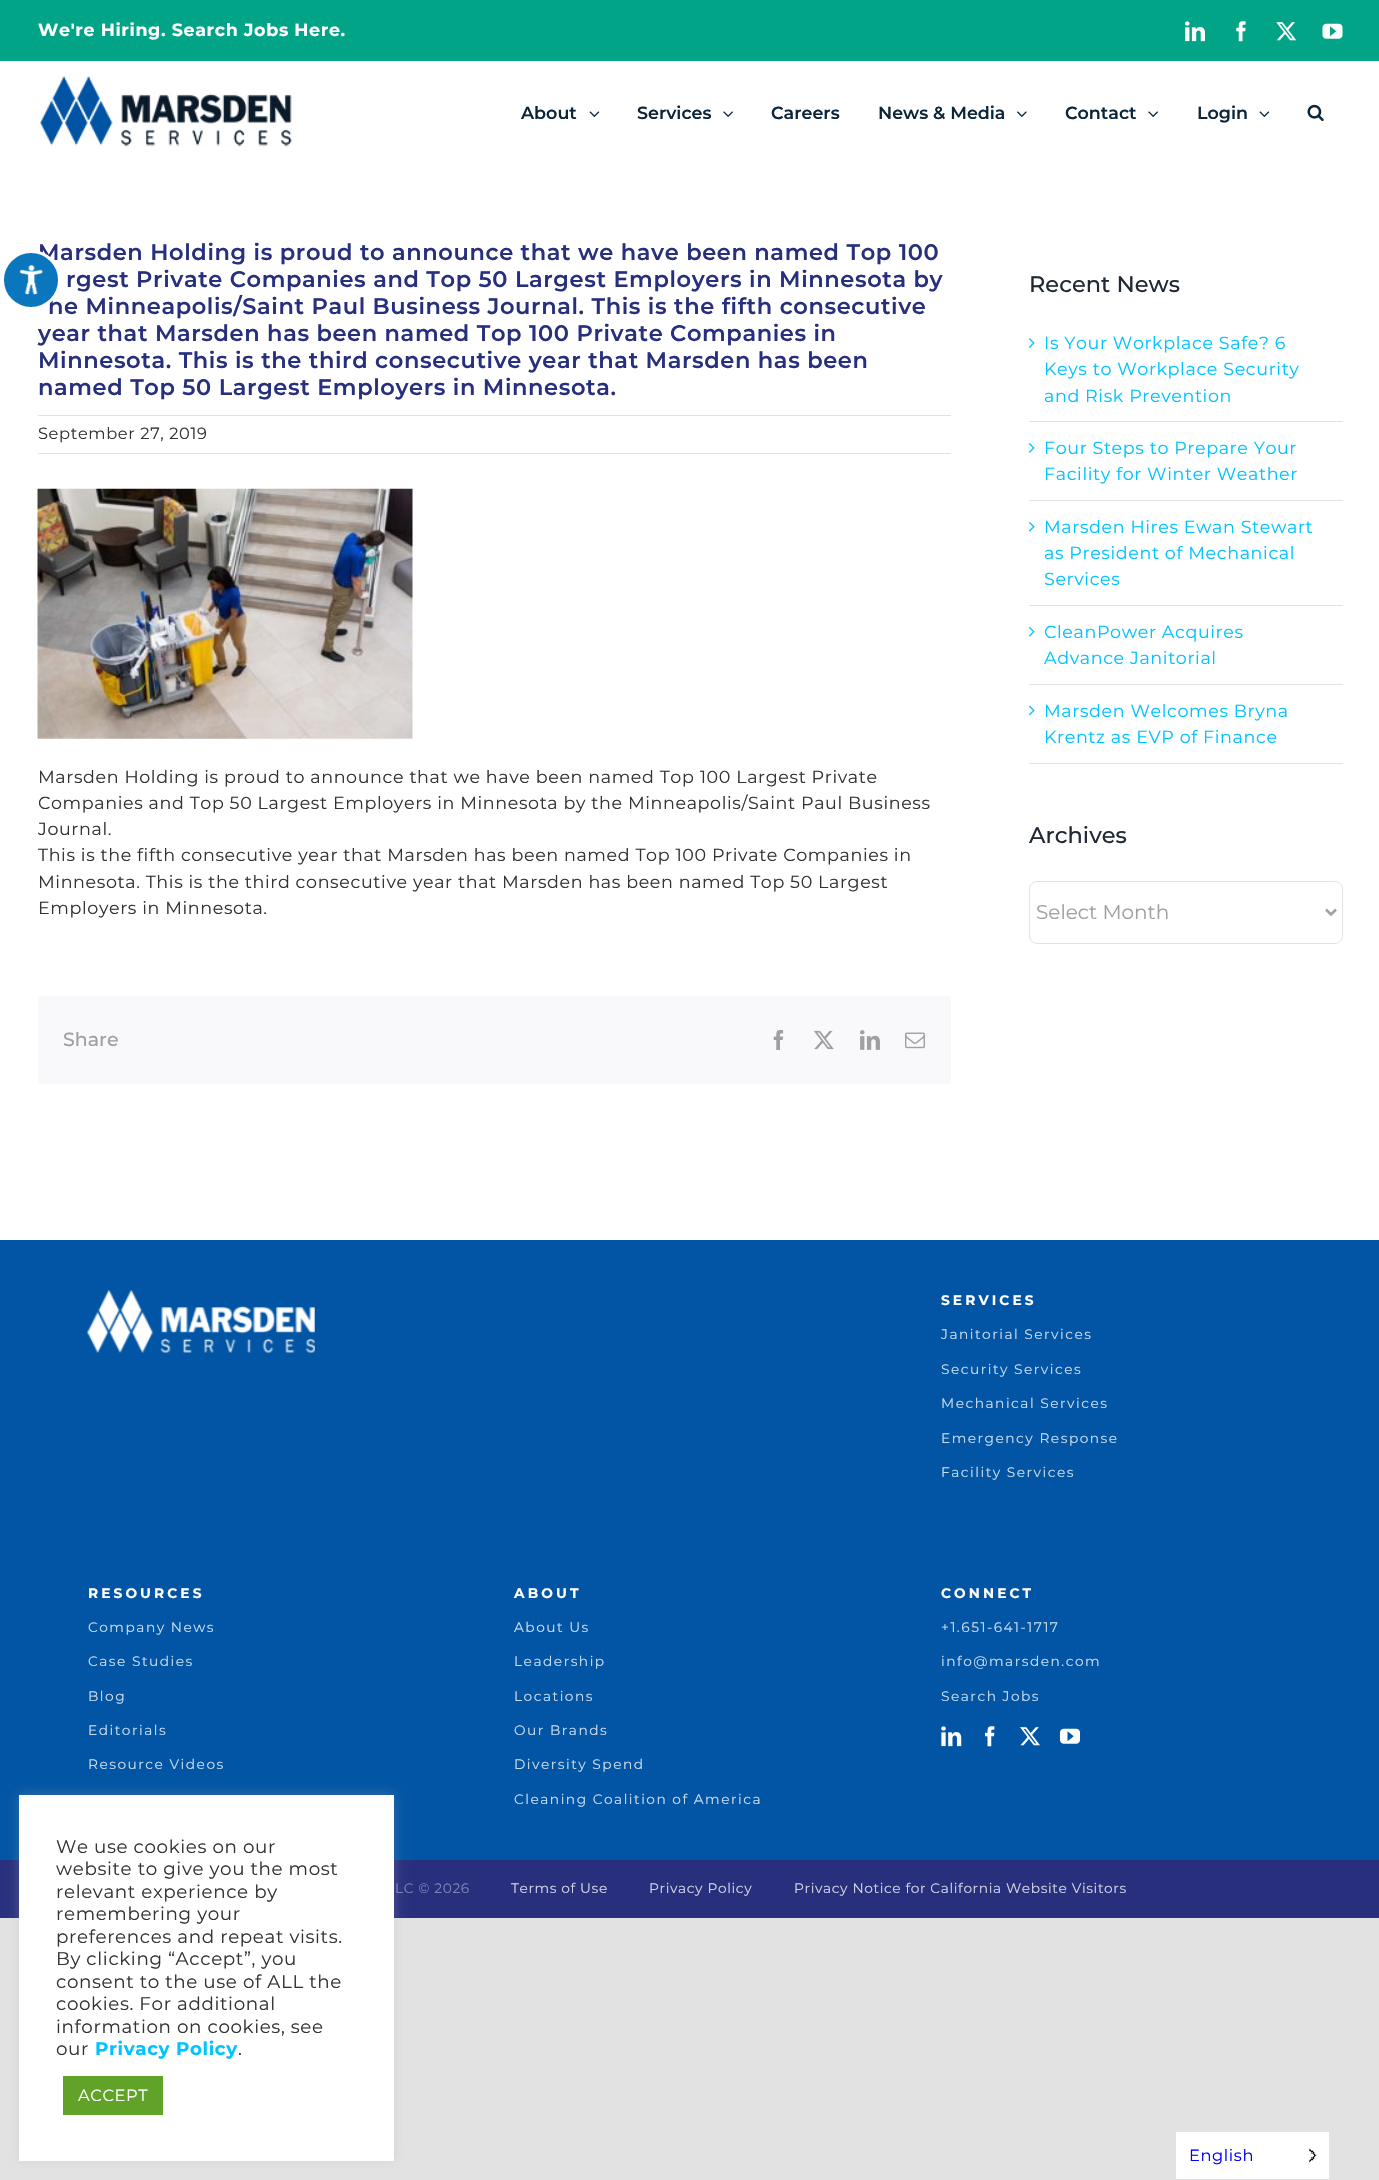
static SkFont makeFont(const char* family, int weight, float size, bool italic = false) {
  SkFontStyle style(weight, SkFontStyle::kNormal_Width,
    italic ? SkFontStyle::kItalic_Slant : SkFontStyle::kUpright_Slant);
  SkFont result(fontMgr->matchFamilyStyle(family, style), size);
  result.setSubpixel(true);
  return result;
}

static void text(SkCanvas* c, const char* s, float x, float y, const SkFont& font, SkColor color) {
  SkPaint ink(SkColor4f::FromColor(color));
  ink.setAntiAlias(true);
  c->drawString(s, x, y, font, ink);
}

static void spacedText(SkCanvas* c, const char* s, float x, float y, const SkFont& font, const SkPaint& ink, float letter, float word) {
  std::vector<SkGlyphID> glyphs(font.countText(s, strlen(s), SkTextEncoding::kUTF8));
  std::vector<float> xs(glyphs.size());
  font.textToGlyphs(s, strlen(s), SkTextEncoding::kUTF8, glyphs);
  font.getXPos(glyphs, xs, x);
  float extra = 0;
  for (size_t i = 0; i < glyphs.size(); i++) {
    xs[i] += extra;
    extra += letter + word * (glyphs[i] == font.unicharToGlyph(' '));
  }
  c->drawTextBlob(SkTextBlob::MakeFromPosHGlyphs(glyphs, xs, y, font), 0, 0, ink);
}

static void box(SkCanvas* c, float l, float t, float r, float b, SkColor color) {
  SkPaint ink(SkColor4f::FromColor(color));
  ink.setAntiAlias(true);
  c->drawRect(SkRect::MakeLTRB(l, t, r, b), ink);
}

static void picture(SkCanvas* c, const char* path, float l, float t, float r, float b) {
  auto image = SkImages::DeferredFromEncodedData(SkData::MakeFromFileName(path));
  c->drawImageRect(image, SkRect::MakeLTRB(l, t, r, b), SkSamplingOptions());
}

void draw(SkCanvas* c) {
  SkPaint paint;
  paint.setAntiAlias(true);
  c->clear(0xffe2e2e2);
  box(c, 0, 61, 1379, 1240, 0xffffffff);
  SkFont face1 = makeFont("Montserrat", 600, 22.5f);
  paint.setColor(0xff28307e);
  spacedText(c, "Marsden Holding is proud to announce that we have been named Top 100", 38, 260, face1, paint, 0.62f, 0);
  spacedText(c, "he Minneapolis/Saint Paul Business Journal. This is the fifth consecutive", 48, 314, face1, paint, 0.62f, 0);
  paint.setColor(0xff0a76be);
  c->drawCircle(31, 280, 28.5f, paint);
  paint.setStyle(SkPaint::kStroke_Style);
  paint.setStrokeWidth(3);
  paint.setColor(0xffffffff);
  c->drawCircle(31, 280, 28.5f, paint);
  picture(c, "img_01.png", 19, 265, 44, 295);
  box(c, 0, 0, 1379, 61, 0xff01a486);
  SkFont face2 = makeFont("Montserrat", 700, 17.5f);
  paint.setStyle(SkPaint::kFill_Style);
  spacedText(c, "We're Hiring. Search Jobs Here.", 38, 36, face2, paint, 0.62f, 0);
  picture(c, "img_02.png", 1185, 21, 1205, 42);
  picture(c, "img_03.png", 1236, 21, 1246, 42);
  picture(c, "img_04.png", 1276, 22, 1297, 41);
  picture(c, "img_05.png", 1322, 23, 1343, 39);
  picture(c, "img_06.png", 39, 75, 292, 147);
  SkFont face3 = makeFont("Montserrat", 600, 17.5f);
  text(c, "About", 521, 119, face3, 0xff0b253b);
  picture(c, "img_07.png", 589, 111, 600, 117);
  text(c, "Services", 637, 119, face3, 0xff0b253b);
  picture(c, "img_08.png", 723, 111, 733, 117);
  text(c, "Careers", 771, 119, face3, 0xff0b253b);
  text(c, "News & Media", 878, 119, face3, 0xff0b253b);
  picture(c, "img_09.png", 1017, 111, 1027, 117);
  text(c, "Contact", 1065, 119, face3, 0xff0b253b);
  picture(c, "img_08.png", 1148, 111, 1158, 117);
  text(c, "Login", 1197, 119, face3, 0xff0b253b);
  picture(c, "img_07.png", 1259, 111, 1270, 117);
  picture(c, "img_10.png", 1307, 104, 1324, 122);
  paint.setColor(0xff28307e);
  spacedText(c, "rgest Private Companies and Top 50 Largest Employers in Minnesota by", 66, 287, face1, paint, 0.62f, 0);
  spacedText(c, "year that Marsden has been named Top 100 Private Companies in", 38, 341, face1, paint, 0.62f, 0);
  spacedText(c, "Minnesota. This is the third consecutive year that Marsden has been", 38, 368, face1, paint, 0.62f, 0);
  spacedText(c, "named Top 50 Largest Employers in Minnesota.", 38, 395, face1, paint, 0.62f, 0);
  box(c, 38, 415, 951, 416, 0xffe2e2e2);
  box(c, 38, 453, 951, 454, 0xffe2e2e2);
  SkFont face4 = makeFont("Montserrat", 400, 16.25f);
  paint.setColor(0xff333333);
  spacedText(c, "September 27, 2019", 38, 439, face4, paint, 0.62f, 0);
  picture(c, "img_11.png", 37, 488, 413, 739);
  SkFont face5 = makeFont("Montserrat", 400, 17.5f);
  spacedText(c, "Marsden Holding is proud to announce that we have been named Top 100 Largest Private", 38, 783, face5, paint, 0.62f, 0);
  spacedText(c, "Companies and Top 50 Largest Employers in Minnesota by the Minneapolis/Saint Paul Business", 38, 809, face5, paint, 0.62f, 0);
  spacedText(c, "Journal.", 38, 835, face5, paint, 0.62f, 0);
  spacedText(c, "This is the fifth consecutive year that Marsden has been named Top 100 Private Companies in", 38, 861, face5, paint, 0.62f, 0);
  spacedText(c, "Minnesota. This is the third consecutive year that Marsden has been named Top 50 Largest", 38, 888, face5, paint, 0.62f, 0);
  spacedText(c, "Employers in Minnesota.", 38, 914, face5, paint, 0.62f, 0);
  box(c, 38, 996, 951, 1084, 0xfff9f9fb);
  SkFont face6 = makeFont("Montserrat", 500, 19);
  text(c, "Share", 63, 1046, face6, 0xff9ea0a4);
  picture(c, "img_12.png", 773, 1030, 784, 1050);
  picture(c, "img_13.png", 814, 1030, 834, 1050);
  picture(c, "img_14.png", 860, 1030, 880, 1050);
  picture(c, "img_15.png", 905, 1032, 925, 1049);
  SkFont face7 = makeFont("Montserrat", 500, 22.5f);
  text(c, "Recent News", 1029, 292, face7, 0xff212934);
  box(c, 1029, 421, 1343, 422, 0xffe2e2e2);
  picture(c, "img_16.png", 1028, 338, 1035, 348);
  paint.setColor(0xff00c3ff);
  spacedText(c, "Is Your Workplace Safe? 6", 1044, 349, face5, paint, 0.62f, 0);
  spacedText(c, "Keys to Workplace Security", 1044, 375, face5, paint, 0.62f, 0);
  spacedText(c, "and Risk Prevention", 1044, 402, face5, paint, 0.62f, 0);
  box(c, 1029, 500, 1343, 501, 0xffe2e2e2);
  picture(c, "img_16.png", 1028, 443, 1035, 453);
  spacedText(c, "Four Steps to Prepare Your", 1044, 454, face5, paint, 0.62f, 0);
  spacedText(c, "Facility for Winter Weather", 1044, 480, face5, paint, 0.62f, 0);
  box(c, 1029, 605, 1343, 606, 0xffe2e2e2);
  picture(c, "img_17.png", 1028, 521, 1035, 532);
  spacedText(c, "Marsden Hires Ewan Stewart", 1044, 533, face5, paint, 0.62f, 0);
  spacedText(c, "as President of Mechanical", 1044, 559, face5, paint, 0.62f, 0);
  spacedText(c, "Services", 1044, 585, face5, paint, 0.62f, 0);
  box(c, 1029, 684, 1343, 685, 0xffe2e2e2);
  picture(c, "img_17.png", 1028, 626, 1035, 637);
  spacedText(c, "CleanPower Acquires", 1044, 638, face5, paint, 0.62f, 0);
  spacedText(c, "Advance Janitorial", 1044, 664, face5, paint, 0.62f, 0);
  box(c, 1029, 763, 1343, 764, 0xffe2e2e2);
  picture(c, "img_18.png", 1028, 705, 1035, 716);
  spacedText(c, "Marsden Welcomes Bryna", 1044, 717, face5, paint, 0.62f, 0);
  spacedText(c, "Krentz as EVP of Finance", 1044, 743, face5, paint, 0.62f, 0);
  text(c, "Archives", 1029, 843, face7, 0xff212934);
  paint.setStyle(SkPaint::kStroke_Style);
  paint.setStrokeWidth(1);
  paint.setColor(0xffe2e2e2);
  c->drawRoundRect(SkRect::MakeLTRB(1029.5f, 881.5f, 1342.5f, 943.5f), 7.5f, 7.5f, paint);
  paint.setStrokeWidth(2.5f);
  paint.setColor(0xff9ea0a4);
  c->drawPath(SkPathBuilder().moveTo(1326, 909.5f).lineTo(1331, 914.5f).lineTo(1336, 909.5f).detach(), paint);
  SkFont face8 = makeFont("Montserrat", 400, 20);
  text(c, "Select Month", 1036, 919, face8, 0xff9ea0a4);
  box(c, 0, 1240, 1379, 1860, 0xff0155a4);
  picture(c, "img_19.png", 87, 1290, 315, 1353);
  SkFont face9 = makeFont("Montserrat", 700, 13.75f);
  paint.setStyle(SkPaint::kFill_Style);
  paint.setColor(0xffffffff);
  spacedText(c, "SERVICES", 941, 1305, face9, paint, 3.1f, 0);
  SkFont face10 = makeFont("Montserrat", 400, 13.75f);
  paint.setColor(0xffccdded);
  spacedText(c, "Janitorial Services", 941, 1339, face10, paint, 1.5f, 0);
  spacedText(c, "Security Services", 941, 1374, face10, paint, 1.5f, 0);
  spacedText(c, "Mechanical Services", 941, 1408, face10, paint, 1.5f, 0);
  spacedText(c, "Emergency Response", 941, 1443, face10, paint, 1.5f, 0);
  spacedText(c, "Facility Services", 941, 1477, face10, paint, 1.5f, 0);
  paint.setColor(0xffffffff);
  spacedText(c, "RESOURCES", 88, 1598, face9, paint, 3.1f, 0);
  paint.setColor(0xffccdded);
  spacedText(c, "Company News", 88, 1632, face10, paint, 1.5f, 0);
  spacedText(c, "Case Studies", 88, 1666, face10, paint, 1.5f, 0);
  spacedText(c, "Blog", 88, 1701, face10, paint, 1.5f, 0);
  spacedText(c, "Editorials", 88, 1735, face10, paint, 1.5f, 0);
  spacedText(c, "Resource Videos", 88, 1769, face10, paint, 1.5f, 0);
  paint.setColor(0xffffffff);
  spacedText(c, "ABOUT", 514, 1598, face9, paint, 3.1f, 0);
  paint.setColor(0xffccdded);
  spacedText(c, "About Us", 514, 1632, face10, paint, 1.5f, 0);
  spacedText(c, "Leadership", 514, 1666, face10, paint, 1.5f, 0);
  spacedText(c, "Locations", 514, 1701, face10, paint, 1.5f, 0);
  spacedText(c, "Our Brands", 514, 1735, face10, paint, 1.5f, 0);
  spacedText(c, "Diversity Spend", 514, 1769, face10, paint, 1.5f, 0);
  spacedText(c, "Cleaning Coalition of America", 514, 1804, face10, paint, 1.5f, 0);
  paint.setColor(0xffffffff);
  spacedText(c, "CONNECT", 941, 1598, face9, paint, 3.1f, 0);
  paint.setColor(0xffccdded);
  spacedText(c, "+1.651-641-1717", 941, 1632, face10, paint, 1.5f, 0);
  spacedText(c, "info@marsden.com", 941, 1666, face10, paint, 1.5f, 0);
  spacedText(c, "Search Jobs", 941, 1701, face10, paint, 1.5f, 0);
  picture(c, "img_20.png", 941, 1726, 962, 1747);
  picture(c, "img_21.png", 985, 1726, 995, 1747);
  picture(c, "img_22.png", 1020, 1727, 1040, 1746);
  picture(c, "img_23.png", 1060, 1728, 1080, 1744);
  box(c, 0, 1860, 1379, 1918, 0xff28307e);
  paint.setColor(0xff7e83b2);
  spacedText(c, "LC © 2026", 395, 1893, face10, paint, 0.62f, 0);
  paint.setColor(0xffd4d6e5);
  spacedText(c, "Terms of Use", 511, 1893, face10, paint, 0.62f, 0);
  spacedText(c, "Privacy Policy", 649, 1893, face10, paint, 0.62f, 0);
  spacedText(c, "Privacy Notice for California Website Visitors", 794, 1893, face10, paint, 0.62f, 0);
  paint.setColor(0x4dacabab);
  paint.setMaskFilter(SkMaskFilter::MakeBlur(kNormal_SkBlurStyle, 6));
  c->drawRect(SkRect::MakeLTRB(19, 1794, 394, 2160), paint);
  paint.setMaskFilter(nullptr);
  box(c, 19, 1795, 394, 2161, 0xffffffff);
  SkFont face11 = makeFont("Montserrat", 400, 18.3f);
  paint.setColor(0xff333333);
  spacedText(c, "We use cookies on our", 56, 1853, face11, paint, 0.62f, 0);
  spacedText(c, "website to give you the most", 56, 1875, face11, paint, 0.62f, 0);
  spacedText(c, "relevant experience by", 56, 1898, face11, paint, 0.62f, 0);
  spacedText(c, "remembering your", 56, 1920, face11, paint, 0.62f, 0);
  spacedText(c, "preferences and repeat visits.", 56, 1943, face11, paint, 0.62f, 0);
  spacedText(c, "By clicking “Accept”, you", 56, 1965, face11, paint, 0.62f, 0);
  spacedText(c, "consent to the use of ALL the", 56, 1988, face11, paint, 0.62f, 0);
  spacedText(c, "cookies. For additional", 56, 2010, face11, paint, 0.62f, 0);
  spacedText(c, "information on cookies, see", 56, 2033, face11, paint, 0.62f, 0);
  spacedText(c, "our", 56, 2055, face11, paint, 0.62f, 0);
  SkFont face12 = makeFont("Montserrat", 700, 18.3f);
  paint.setColor(0xff00c3ff);
  spacedText(c, "Privacy Policy", 95, 2055, face12, paint, 0.62f, 0);
  paint.setColor(0xff333333);
  spacedText(c, ".", 238, 2055, face11, paint, 0.62f, 0);
  box(c, 63, 2076, 163, 2115, 0xff61a229);
  paint.setColor(0xffffffff);
  spacedText(c, "ACCEPT", 78, 2101, face4, paint, 0.62f, 0);
  box(c, 1176, 2132, 1329, 2179, 0xffffffff);
  paint.setColor(0xff0000ff);
  spacedText(c, "English", 1189, 2161, face4, paint, 0.62f, 0);
  picture(c, "img_24.png", 1309, 2148, 1317, 2162);
}
